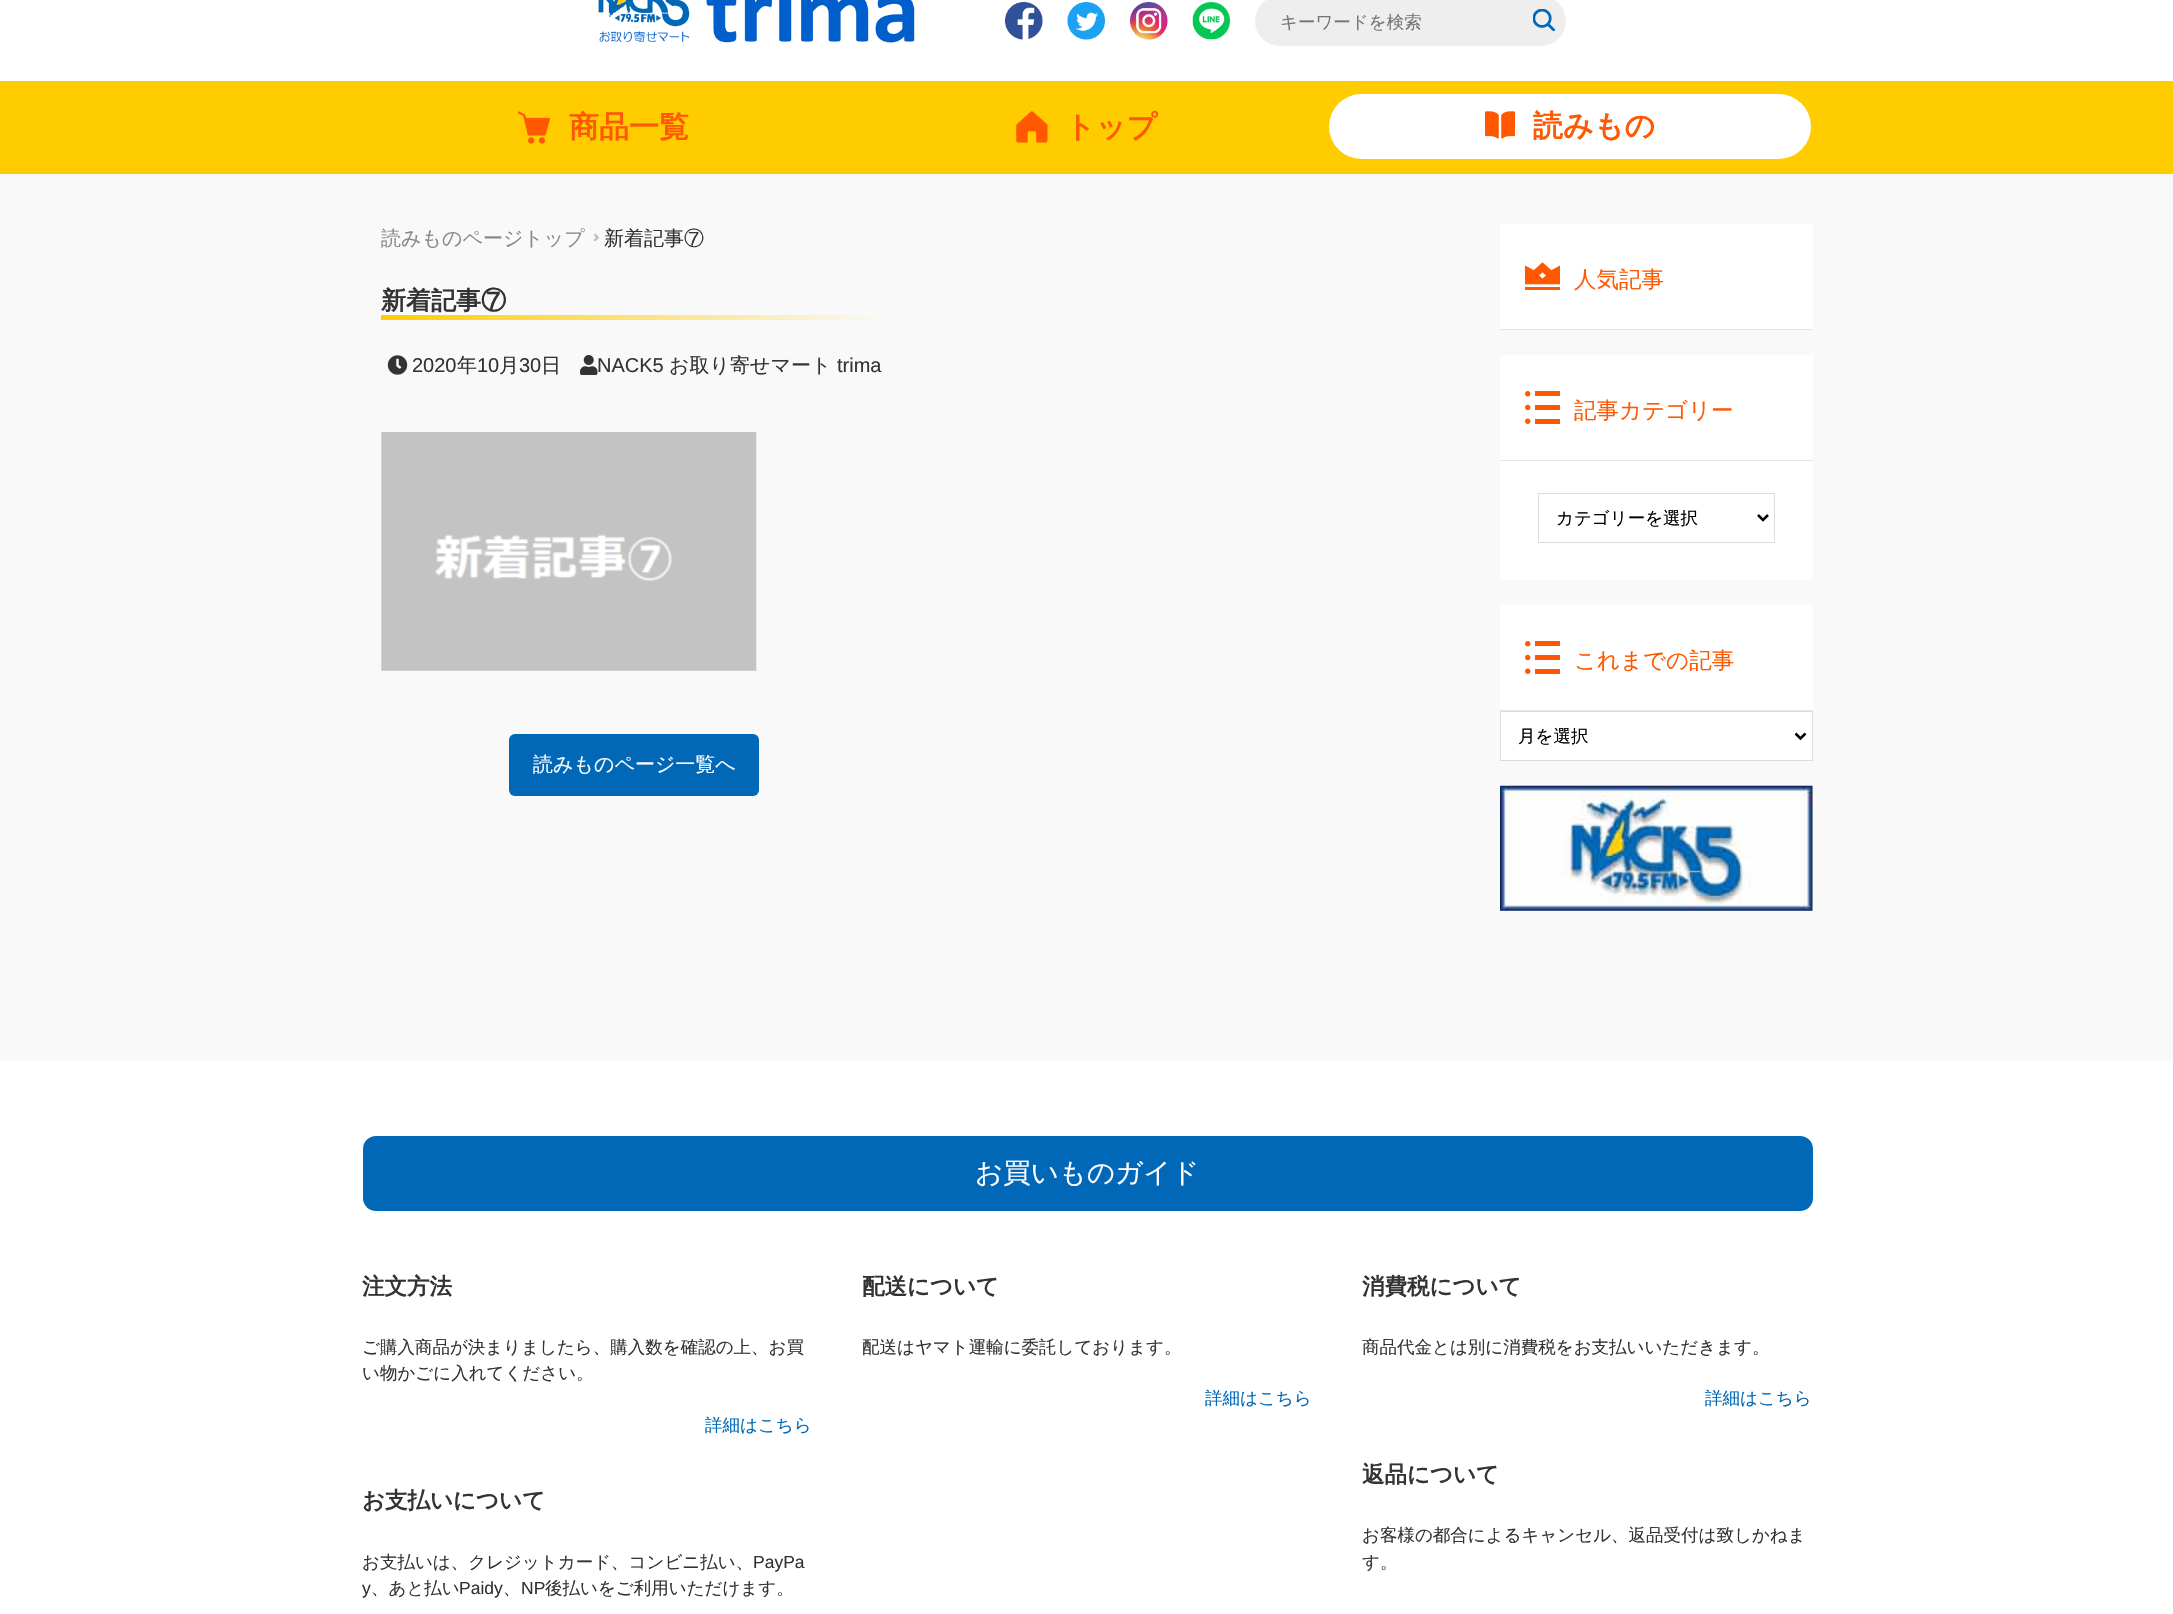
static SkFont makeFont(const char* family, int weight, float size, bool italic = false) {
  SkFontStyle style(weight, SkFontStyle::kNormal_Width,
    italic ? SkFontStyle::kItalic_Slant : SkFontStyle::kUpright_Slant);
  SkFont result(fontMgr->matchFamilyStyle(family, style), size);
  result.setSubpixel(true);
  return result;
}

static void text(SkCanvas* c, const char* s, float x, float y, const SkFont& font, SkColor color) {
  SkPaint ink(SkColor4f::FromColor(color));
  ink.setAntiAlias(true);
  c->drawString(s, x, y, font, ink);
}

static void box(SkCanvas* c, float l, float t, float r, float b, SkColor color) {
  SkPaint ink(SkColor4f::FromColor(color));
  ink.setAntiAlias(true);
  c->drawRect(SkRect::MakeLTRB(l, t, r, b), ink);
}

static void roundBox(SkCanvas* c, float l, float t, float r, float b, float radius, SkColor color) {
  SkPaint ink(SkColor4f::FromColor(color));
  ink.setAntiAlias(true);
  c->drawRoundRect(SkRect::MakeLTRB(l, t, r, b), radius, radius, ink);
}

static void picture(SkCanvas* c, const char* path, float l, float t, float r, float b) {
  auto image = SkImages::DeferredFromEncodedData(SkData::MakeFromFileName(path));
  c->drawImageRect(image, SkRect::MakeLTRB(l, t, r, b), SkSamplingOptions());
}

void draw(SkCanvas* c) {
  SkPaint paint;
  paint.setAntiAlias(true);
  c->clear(0xfff9f9f9);
  box(c, 0, 0, 2173, 81, 0xffffffff);
  picture(c, "img_01.png", 598, 0, 915, 43);
  picture(c, "img_02.png", 1005, 2, 1043, 40);
  picture(c, "img_03.png", 1067, 2, 1105, 40);
  picture(c, "img_04.png", 1130, 2, 1168, 40);
  picture(c, "img_05.png", 1192, 2, 1230, 40);
  roundBox(c, 1255, -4, 1566, 46, 25, 0xffeeeeee);
  SkFont face1 = makeFont("WenQuanYi Zen Hei", 500, 17.5f);
  text(c, "キーワードを検索", 1280, 28, face1, 0xff757575);
  picture(c, "img_06.png", 1533, 9, 1555, 31);
  box(c, 0, 81, 2173, 174, 0xffffcc00);
  picture(c, "img_07.png", 518, 111, 550, 144);
  SkFont face2 = makeFont("WenQuanYi Zen Hei", 700, 30);
  text(c, "商品一覧", 569, 137, face2, 0xffff5800);
  picture(c, "img_08.png", 1016, 111, 1048, 143);
  text(c, "トップ", 1065, 137, face2, 0xffff5800);
  roundBox(c, 1329, 94, 1811, 159, 32.5f, 0xffffffff);
  picture(c, "img_09.png", 1485, 111, 1515, 139);
  text(c, "読みもの", 1533, 136, face2, 0xffff5800);
  SkFont face3 = makeFont("WenQuanYi Zen Hei", 500, 20);
  text(c, "読みものページトップ", 381, 245, face3, 0xff888888);
  picture(c, "img_10.png", 593, 233, 599, 241);
  text(c, "新着記事⑦", 604, 245, face3, 0xff333333);
  SkFont face4 = makeFont("WenQuanYi Zen Hei", 700, 25);
  text(c, "新着記事⑦", 381, 309, face4, 0xff333333);
  {
    const SkColor colors[] = {0xffffcc00, 0xfff9f9f9};
    const float stops[] = {0, 1};
    const SkPoint ends[] = {{381, 318}, {888, 318}};
    paint.setShader(SkGradientShader::MakeLinear(ends, colors, stops, 2, SkTileMode::kClamp));
    paint.setAlpha(255);
  }
  c->drawRect(SkRect::MakeLTRB(381, 315, 888, 320), paint);
  picture(c, "img_11.png", 387, 355, 408, 375);
  SkFont face5 = makeFont("Liberation Sans", 400, 20);
  text(c, "2020", 412, 372, face5, 0xff333333);
  text(c, "年", 457, 372, face3, 0xff333333);
  text(c, "10", 477, 372, face5, 0xff333333);
  text(c, "月", 499, 372, face3, 0xff333333);
  text(c, "30", 519, 372, face5, 0xff333333);
  text(c, "日", 541, 372, face3, 0xff333333);
  picture(c, "img_12.png", 580, 355, 598, 375);
  text(c, "NACK5", 597, 372, face5, 0xff333333);
  text(c, "お取り寄せマート", 669, 372, face3, 0xff333333);
  text(c, "trima", 837, 372, face5, 0xff333333);
  picture(c, "img_13.png", 381, 432, 757, 671);
  roundBox(c, 509, 734, 759, 796, 6, 0xff0068b7);
  text(c, "読みものページ一覧へ", 533, 771, face3, 0xffffffff);
  box(c, 1500, 224, 1813, 329, 0xffffffff);
  box(c, 1500, 329, 1813, 330, 0xffe5e5e5);
  picture(c, "img_14.png", 1525, 262, 1560, 290);
  SkFont face6 = makeFont("WenQuanYi Zen Hei", 500, 22.5f);
  text(c, "人気記事", 1574, 287, face6, 0xffff5800);
  box(c, 1500, 355, 1813, 460, 0xffffffff);
  box(c, 1500, 460, 1813, 461, 0xffe5e5e5);
  picture(c, "img_15.png", 1525, 391, 1560, 424);
  text(c, "記事カテゴリー", 1574, 418, face6, 0xffff5800);
  box(c, 1500, 461, 1813, 580, 0xffffffff);
  paint.setStyle(SkPaint::kStroke_Style);
  paint.setStrokeWidth(1);
  paint.setShader(nullptr);
  paint.setColor(0xffdddddd);
  c->drawRect(SkRect::MakeLTRB(1538.5f, 493.5f, 1774.5f, 542.5f), paint);
  paint.setStrokeWidth(2.5f);
  paint.setColor(0xff000000);
  c->drawPath(SkPathBuilder().moveTo(1758, 515).lineTo(1763, 520).lineTo(1768, 515).detach(), paint);
  text(c, "カテゴリーを選択", 1556, 524, face1, 0xff000000);
  box(c, 1500, 605, 1813, 710, 0xffffffff);
  box(c, 1500, 710, 1813, 711, 0xffe5e5e5);
  picture(c, "img_15.png", 1525, 641, 1560, 674);
  text(c, "これまでの記事", 1574, 668, face6, 0xffff5800);
  paint.setStyle(SkPaint::kFill_Style);
  paint.setColor(0xffffffff);
  c->drawRect(SkRect::MakeLTRB(1500.5f, 711.5f, 1812.5f, 760.5f), paint);
  paint.setStyle(SkPaint::kStroke_Style);
  paint.setStrokeWidth(1);
  paint.setColor(0xffdddddd);
  c->drawRect(SkRect::MakeLTRB(1500.5f, 711.5f, 1812.5f, 760.5f), paint);
  paint.setStrokeWidth(2.5f);
  paint.setColor(0xff000000);
  c->drawPath(SkPathBuilder().moveTo(1795.5f, 733.5f).lineTo(1800.5f, 738.5f).lineTo(1805.5f, 733.5f).detach(), paint);
  text(c, "月を選択", 1518, 742, face1, 0xff000000);
  picture(c, "img_16.png", 1500, 785, 1813, 911);
  box(c, 0, 1061, 2173, 1614, 0xffffffff);
  roundBox(c, 363, 1136, 1813, 1211, 13, 0xff0068b7);
  SkFont face7 = makeFont("WenQuanYi Zen Hei", 500, 27.5f);
  text(c, "お買いものガイド", 975, 1182, face7, 0xffffffff);
  SkFont face8 = makeFont("WenQuanYi Zen Hei", 700, 22.5f);
  text(c, "注文方法", 362, 1294, face8, 0xff333333);
  text(c, "ご購入商品が決まりましたら、購入数を確認の上、お買", 362, 1353, face1, 0xff333333);
  text(c, "い物かごに入れてください。", 362, 1379, face1, 0xff333333);
  text(c, "詳細はこちら", 705, 1431, face1, 0xff0068b7);
  text(c, "お支払いについて", 362, 1508, face8, 0xff333333);
  text(c, "お支払いは、クレジットカード、コンビニ払い、", 362, 1568, face1, 0xff333333);
  SkFont face9 = makeFont("Liberation Sans", 400, 17.5f);
  text(c, "PayPa", 753, 1568, face9, 0xff333333);
  text(c, "y", 362, 1594, face9, 0xff333333);
  text(c, "、あと払い", 371, 1594, face1, 0xff333333);
  text(c, "Paidy", 459, 1594, face9, 0xff333333);
  text(c, "、", 503, 1594, face1, 0xff333333);
  text(c, "NP", 521, 1594, face9, 0xff333333);
  text(c, "後払いをご利用いただけます。", 545, 1594, face1, 0xff333333);
  text(c, "配送について", 862, 1294, face8, 0xff333333);
  text(c, "配送はヤマト運輸に委託しております。", 862, 1353, face1, 0xff333333);
  text(c, "詳細はこちら", 1205, 1404, face1, 0xff0068b7);
  text(c, "消費税について", 1362, 1294, face8, 0xff333333);
  text(c, "商品代金とは別に消費税をお支払いいただきます。", 1362, 1353, face1, 0xff333333);
  text(c, "詳細はこちら", 1705, 1404, face1, 0xff0068b7);
  text(c, "返品について", 1362, 1482, face8, 0xff333333);
  text(c, "お客様の都合によるキャンセル、返品受付は致しかねま", 1362, 1541, face1, 0xff333333);
  text(c, "す。", 1362, 1568, face1, 0xff333333);
}
